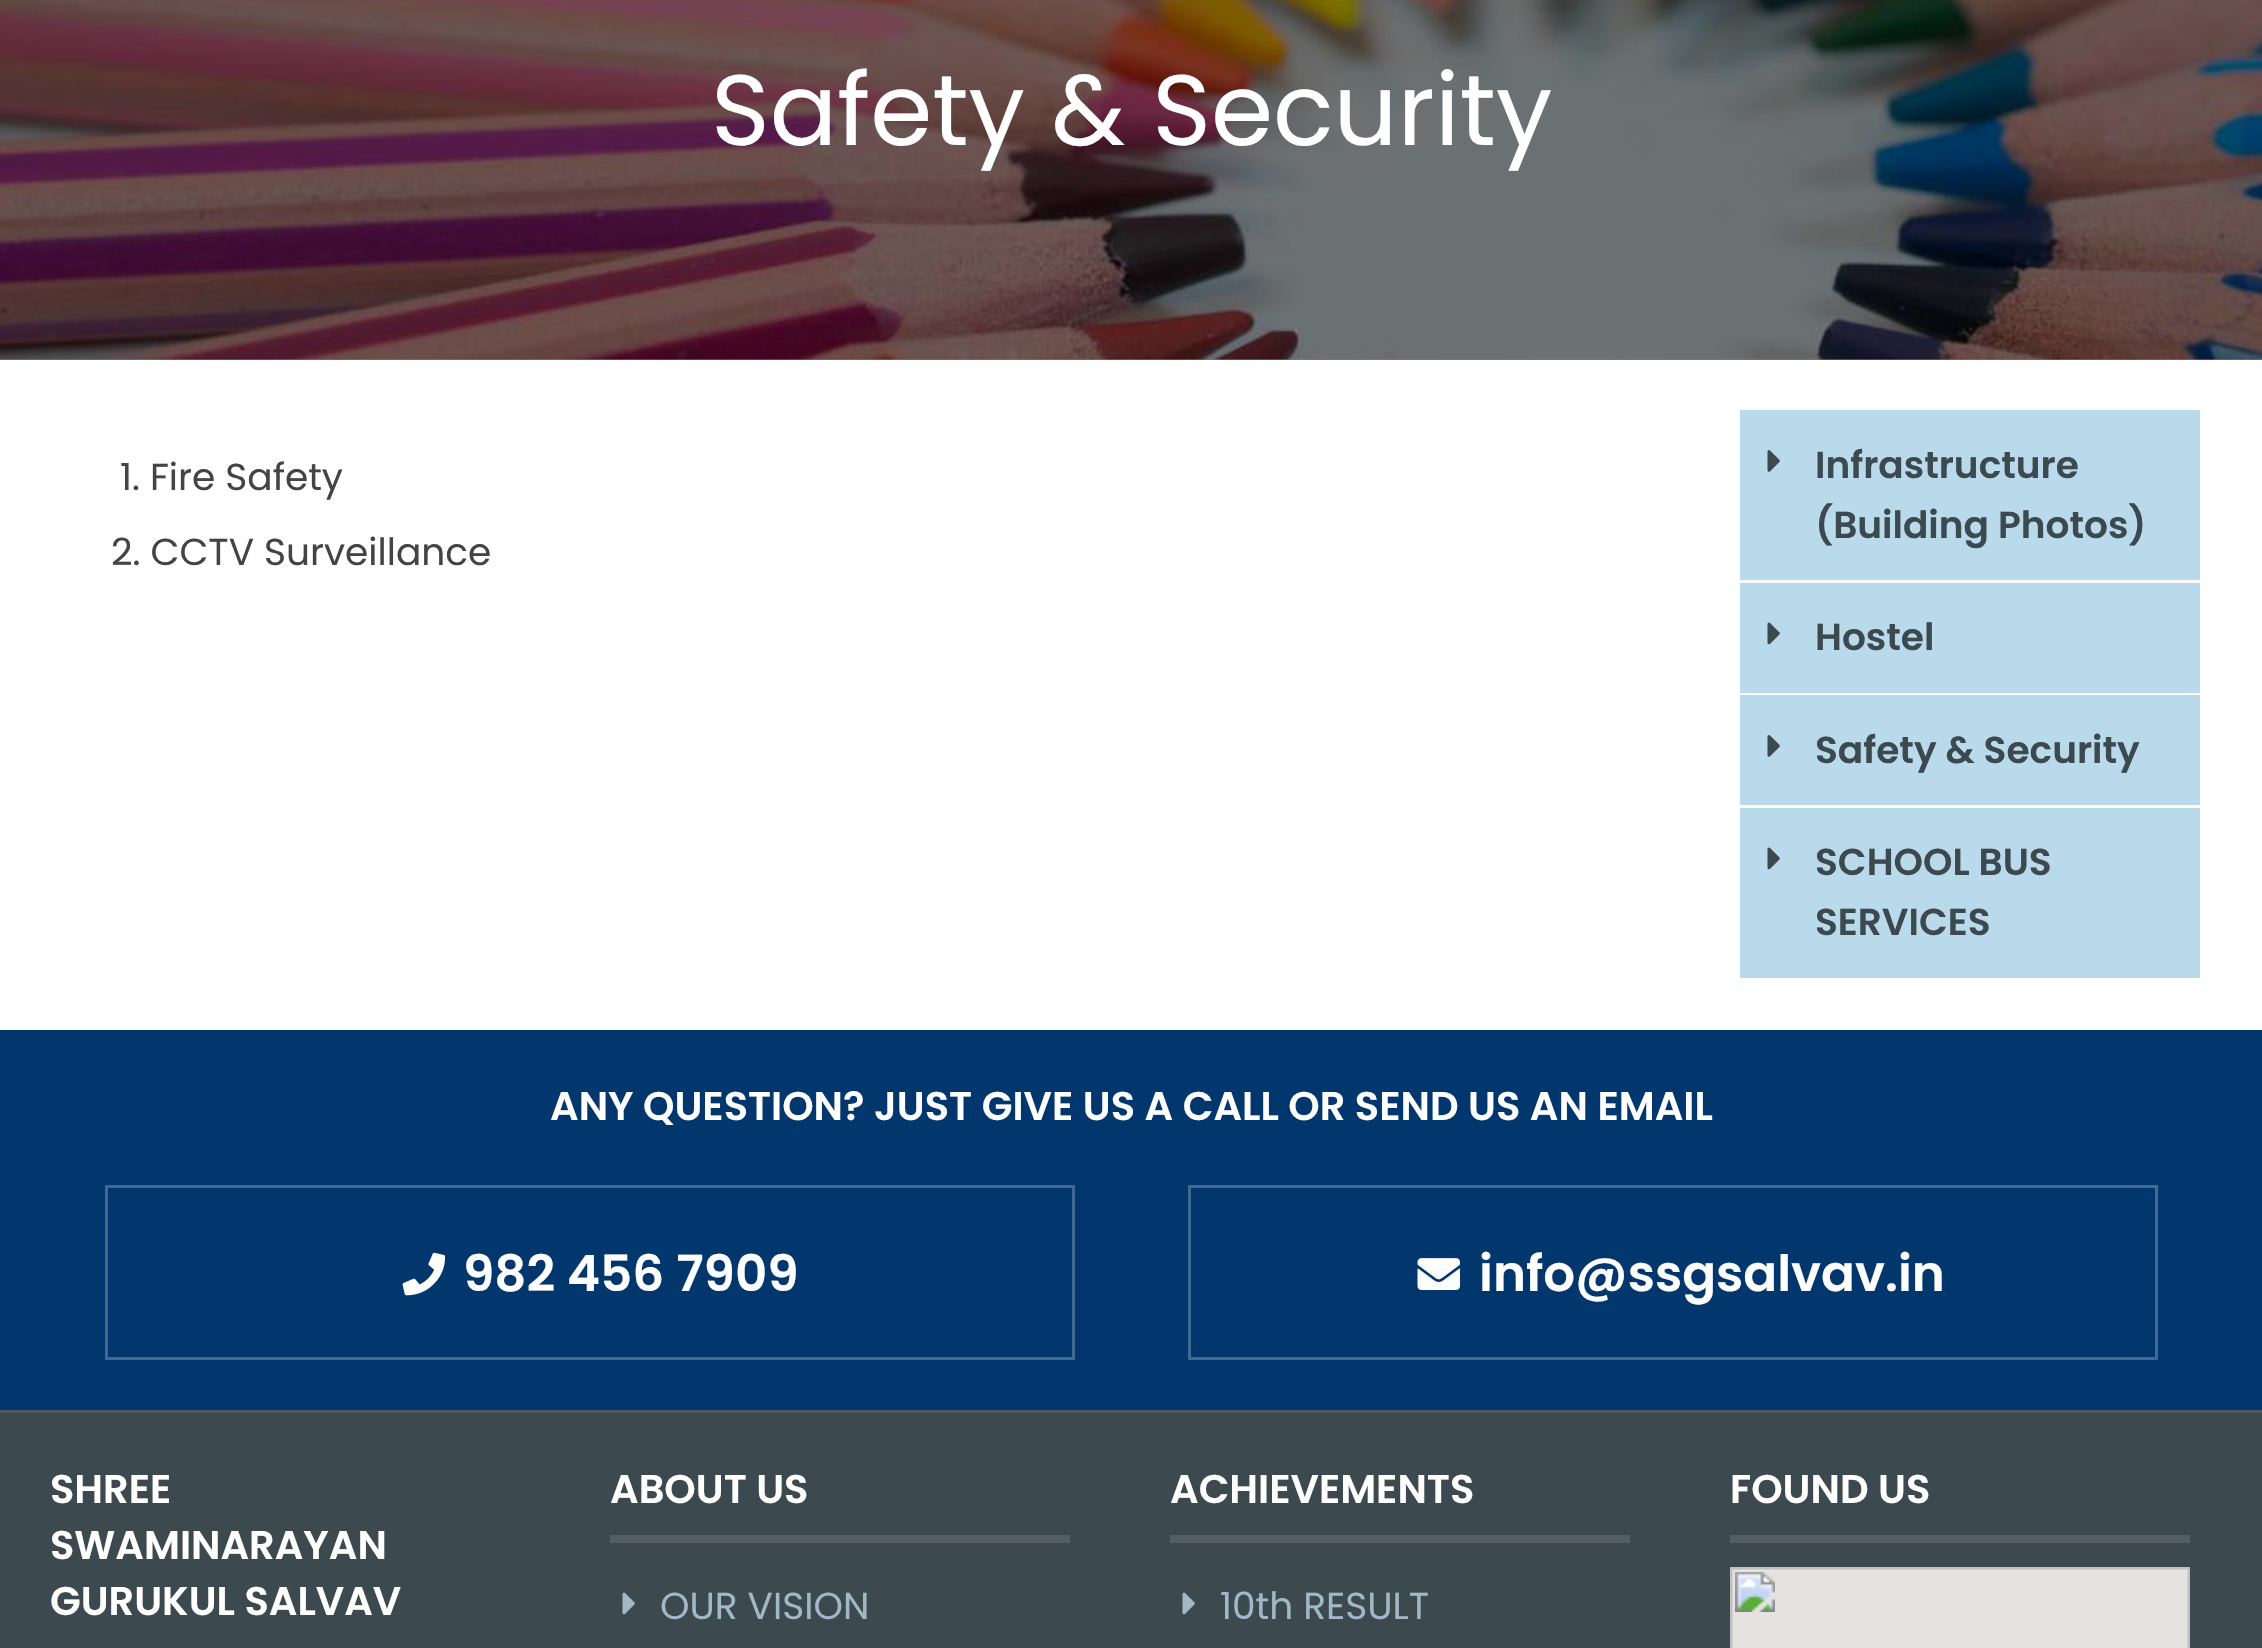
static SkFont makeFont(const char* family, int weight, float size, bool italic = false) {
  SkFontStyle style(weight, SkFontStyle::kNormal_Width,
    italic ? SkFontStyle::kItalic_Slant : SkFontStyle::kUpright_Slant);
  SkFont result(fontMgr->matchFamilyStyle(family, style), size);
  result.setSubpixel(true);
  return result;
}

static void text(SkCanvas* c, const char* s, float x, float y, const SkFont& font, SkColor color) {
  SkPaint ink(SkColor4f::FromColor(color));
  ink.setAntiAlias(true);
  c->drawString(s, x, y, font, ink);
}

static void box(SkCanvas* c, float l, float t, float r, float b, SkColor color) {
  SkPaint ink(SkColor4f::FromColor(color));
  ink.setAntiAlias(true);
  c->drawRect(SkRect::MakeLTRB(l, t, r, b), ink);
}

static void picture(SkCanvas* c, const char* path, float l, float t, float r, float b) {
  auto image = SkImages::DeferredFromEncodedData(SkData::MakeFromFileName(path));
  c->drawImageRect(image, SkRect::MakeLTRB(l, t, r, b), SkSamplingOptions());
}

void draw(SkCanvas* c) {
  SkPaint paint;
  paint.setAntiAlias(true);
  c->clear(0xffffffff);
  box(c, 0, 359, 2262, 360, 0xff7d7d7d);
  picture(c, "img_01.png", 0, 0, 2262, 360);
  SkFont face1 = makeFont("Poppins", 400, 100);
  text(c, "Safety & Security", 711, 145, face1, 0xffffffff);
  SkFont face2 = makeFont("Poppins", 400, 37.5f);
  text(c, "1. Fire Safety", 120, 490, face2, 0xff444444);
  text(c, "2. CCTV Surveillance", 111, 565, face2, 0xff444444);
  box(c, 1740, 410, 2200, 580, 0xffb9daeb);
  picture(c, "img_02.png", 1767, 450, 1780, 472);
  SkFont face3 = makeFont("Poppins", 600, 37.5f);
  text(c, "Infrastructure", 1815, 478, face3, 0xff3c494f);
  text(c, "(Building Photos)", 1815, 538, face3, 0xff3c494f);
  box(c, 1740, 583, 2200, 693, 0xffb9daeb);
  picture(c, "img_03.png", 1767, 622, 1780, 645);
  text(c, "Hostel", 1815, 650, face3, 0xff3c494f);
  box(c, 1740, 695, 2200, 805, 0xffb9daeb);
  picture(c, "img_02.png", 1767, 735, 1780, 757);
  text(c, "Safety & Security", 1815, 763, face3, 0xff3c494f);
  box(c, 1740, 808, 2200, 978, 0xffb9daeb);
  picture(c, "img_03.png", 1767, 847, 1780, 870);
  text(c, "SCHOOL BUS", 1815, 875, face3, 0xff3c494f);
  text(c, "SERVICES", 1815, 935, face3, 0xff3c494f);
  box(c, 0, 1030, 2262, 1410, 0xff01376d);
  SkFont face4 = makeFont("Poppins", 600, 40);
  text(c, "ANY QUESTION? JUST GIVE US A CALL OR SEND US AN EMAIL", 550, 1120, face4, 0xffffffff);
  paint.setStyle(SkPaint::kStroke_Style);
  paint.setStrokeWidth(3);
  paint.setColor(0xff416992);
  c->drawRect(SkRect::MakeLTRB(106.5f, 1186.5f, 1073.5f, 1358.5f), paint);
  picture(c, "img_04.png", 402, 1252, 446, 1296);
  SkFont face5 = makeFont("Poppins", 600, 50);
  text(c, "982 456 7909", 463, 1291, face5, 0xffffffff);
  c->drawRect(SkRect::MakeLTRB(1189.5f, 1186.5f, 2156.5f, 1358.5f), paint);
  picture(c, "img_05.png", 1417, 1258, 1460, 1290);
  text(c, "info@ssgsalvav.in", 1479, 1291, face5, 0xffffffff);
  box(c, 0, 1413, 2262, 1648, 0xff3c494f);
  box(c, 0, 1410, 2262, 1413, 0xff505b61);
  text(c, "SHREE", 50, 1503, face4, 0xffffffff);
  text(c, "SWAMINARAYAN", 50, 1559, face4, 0xffffffff);
  text(c, "GURUKUL SALVAV", 50, 1615, face4, 0xffffffff);
  box(c, 610, 1535, 1070, 1543, 0xff535f64);
  text(c, "ABOUT US", 610, 1503, face4, 0xffffffff);
  picture(c, "img_06.png", 622, 1592, 635, 1615);
  text(c, "OUR VISION", 660, 1619, face2, 0xffa3b8c6);
  box(c, 1170, 1535, 1630, 1543, 0xff535f64);
  text(c, "ACHIEVEMENTS", 1170, 1503, face4, 0xffffffff);
  picture(c, "img_06.png", 1182, 1592, 1195, 1615);
  text(c, "10th RESULT", 1220, 1619, face2, 0xffa3b8c6);
  box(c, 1730, 1535, 2190, 1543, 0xff535f64);
  text(c, "FOUND US", 1730, 1503, face4, 0xffffffff);
  picture(c, "img_07.png", 1730, 1567, 2190, 1648);
}
